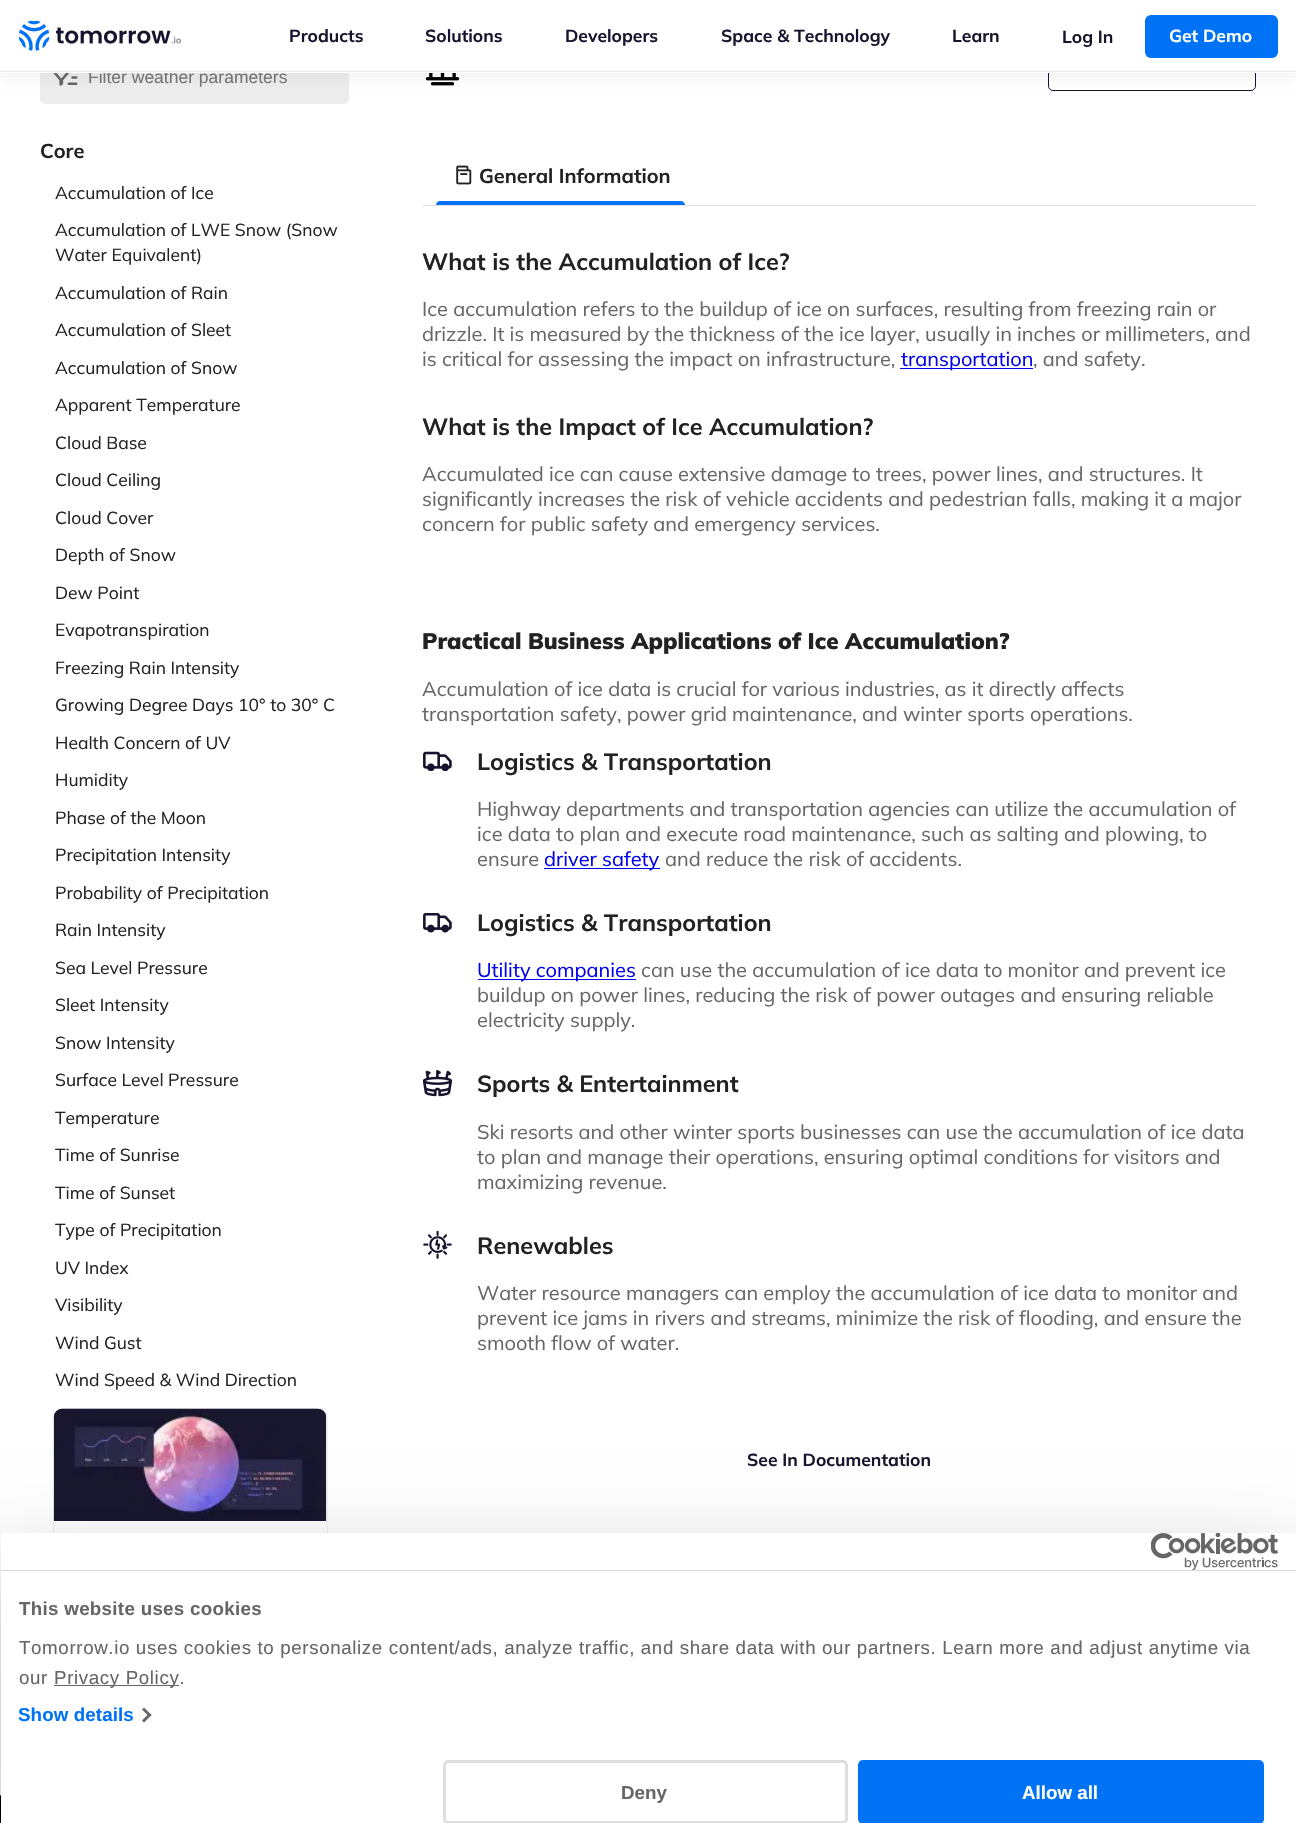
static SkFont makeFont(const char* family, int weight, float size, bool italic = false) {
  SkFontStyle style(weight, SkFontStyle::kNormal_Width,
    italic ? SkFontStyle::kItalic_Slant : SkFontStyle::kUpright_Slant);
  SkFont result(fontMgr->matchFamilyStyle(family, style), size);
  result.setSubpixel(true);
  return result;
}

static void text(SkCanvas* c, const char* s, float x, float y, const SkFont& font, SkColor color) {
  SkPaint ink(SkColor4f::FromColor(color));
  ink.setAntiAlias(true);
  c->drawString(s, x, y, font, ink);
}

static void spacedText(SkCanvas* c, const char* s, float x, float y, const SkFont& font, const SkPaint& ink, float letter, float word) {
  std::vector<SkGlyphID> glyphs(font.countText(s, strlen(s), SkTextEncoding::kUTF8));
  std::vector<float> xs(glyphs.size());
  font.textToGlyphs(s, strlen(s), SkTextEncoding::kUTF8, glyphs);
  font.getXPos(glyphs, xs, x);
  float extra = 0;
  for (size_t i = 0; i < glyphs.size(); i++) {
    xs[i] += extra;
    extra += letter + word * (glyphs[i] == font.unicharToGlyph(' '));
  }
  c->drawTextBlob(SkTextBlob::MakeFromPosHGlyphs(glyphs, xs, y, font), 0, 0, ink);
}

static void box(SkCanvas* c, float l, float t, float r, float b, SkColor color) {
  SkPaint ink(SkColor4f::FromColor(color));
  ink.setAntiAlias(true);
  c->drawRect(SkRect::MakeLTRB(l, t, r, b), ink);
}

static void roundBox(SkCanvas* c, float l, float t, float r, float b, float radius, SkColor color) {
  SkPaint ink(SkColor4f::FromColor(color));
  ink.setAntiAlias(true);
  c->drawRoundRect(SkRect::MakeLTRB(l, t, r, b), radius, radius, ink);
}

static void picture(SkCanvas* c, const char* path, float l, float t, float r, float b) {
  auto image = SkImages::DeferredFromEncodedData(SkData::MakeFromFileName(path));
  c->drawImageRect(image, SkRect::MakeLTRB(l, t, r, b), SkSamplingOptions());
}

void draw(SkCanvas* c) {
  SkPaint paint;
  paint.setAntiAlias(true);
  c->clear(0xffffffff);
  roundBox(c, 40, 49, 349, 104, 5, 0xffededed);
  picture(c, "img_02.png", 53, 73, 78, 86);
  picture(c, "img_04.png", 425, 73, 460, 86);
  paint.setStyle(SkPaint::kStroke_Style);
  paint.setStrokeWidth(1);
  paint.setColor(0xff17152e);
  c->drawRoundRect(SkRect::MakeLTRB(1048.5f, 49.5f, 1255.5f, 90.5f), 4.5f, 4.5f, paint);
  paint.setStyle(SkPaint::kFill_Style);
  paint.setColor(0x0d000000);
  paint.setMaskFilter(SkMaskFilter::MakeBlur(kNormal_SkBlurStyle, 6));
  c->drawRect(SkRect::MakeLTRB(0, 5, 1296, 78), paint);
  paint.setMaskFilter(nullptr);
  SkFont face1 = makeFont("Liberation Sans", 400, 17.5f);
  text(c, "Filter weather parameters", 88, 83, face1, 0xff757575);
  box(c, 0, 0, 1296, 73, 0xffffffff);
  box(c, 0, 71, 1296, 72, 0xffebebeb);
  picture(c, "img_01.png", 19, 20, 181, 51);
  SkFont face2 = makeFont("Mulish", 700, 17.5f);
  text(c, "Products", 289, 42, face2, 0xff17152e);
  text(c, "Solutions", 425, 42, face2, 0xff17152e);
  text(c, "Developers", 565, 42, face2, 0xff17152e);
  text(c, "Space & Technology", 721, 42, face2, 0xff17152e);
  text(c, "Learn", 952, 42, face2, 0xff17152e);
  text(c, "Log In", 1062, 43, face2, 0xff17152e);
  roundBox(c, 1145, 15, 1278, 58, 6, 0xff0072f5);
  text(c, "Get Demo", 1169, 42, face2, 0xffffffff);
  SkFont face3 = makeFont("Mulish", 700, 20);
  text(c, "Core", 40, 158, face3, 0xff222222);
  SkFont face4 = makeFont("Mulish", 400, 17.5f);
  text(c, "Accumulation of Ice", 55, 199, face4, 0xff222222);
  text(c, "Accumulation of LWE Snow (Snow", 55, 236, face4, 0xff222222);
  text(c, "Water Equivalent)", 55, 261, face4, 0xff222222);
  text(c, "Accumulation of Rain", 55, 299, face4, 0xff222222);
  text(c, "Accumulation of Sleet", 55, 336, face4, 0xff222222);
  text(c, "Accumulation of Snow", 55, 374, face4, 0xff222222);
  text(c, "Apparent Temperature", 55, 411, face4, 0xff222222);
  text(c, "Cloud Base", 55, 449, face4, 0xff222222);
  text(c, "Cloud Ceiling", 55, 486, face4, 0xff222222);
  text(c, "Cloud Cover", 55, 524, face4, 0xff222222);
  text(c, "Depth of Snow", 55, 561, face4, 0xff222222);
  text(c, "Dew Point", 55, 599, face4, 0xff222222);
  text(c, "Evapotranspiration", 55, 636, face4, 0xff222222);
  text(c, "Freezing Rain Intensity", 55, 674, face4, 0xff222222);
  text(c, "Growing Degree Days 10° to 30° C", 55, 711, face4, 0xff222222);
  text(c, "Health Concern of UV", 55, 749, face4, 0xff222222);
  text(c, "Humidity", 55, 786, face4, 0xff222222);
  text(c, "Phase of the Moon", 55, 824, face4, 0xff222222);
  text(c, "Precipitation Intensity", 55, 861, face4, 0xff222222);
  text(c, "Probability of Precipitation", 55, 899, face4, 0xff222222);
  text(c, "Rain Intensity", 55, 936, face4, 0xff222222);
  text(c, "Sea Level Pressure", 55, 974, face4, 0xff222222);
  text(c, "Sleet Intensity", 55, 1011, face4, 0xff222222);
  text(c, "Snow Intensity", 55, 1049, face4, 0xff222222);
  text(c, "Surface Level Pressure", 55, 1086, face4, 0xff222222);
  text(c, "Temperature", 55, 1124, face4, 0xff222222);
  text(c, "Time of Sunrise", 55, 1161, face4, 0xff222222);
  text(c, "Time of Sunset", 55, 1199, face4, 0xff222222);
  text(c, "Type of Precipitation", 55, 1236, face4, 0xff222222);
  text(c, "UV Index", 55, 1274, face4, 0xff222222);
  text(c, "Visibility", 55, 1311, face4, 0xff222222);
  text(c, "Wind Gust", 55, 1349, face4, 0xff222222);
  text(c, "Wind Speed & Wind Direction", 55, 1386, face4, 0xff222222);
  paint.setStyle(SkPaint::kStroke_Style);
  paint.setColor(0xffefefef);
  c->drawRoundRect(SkRect::MakeLTRB(53.5f, 1408.5f, 327.5f, 1602.5f), 9.5f, 9.5f, paint);
  picture(c, "img_03.png", 53, 1408, 327, 1521);
  box(c, 423, 205, 1256, 206, 0xffdfdfdf);
  picture(c, "img_05.png", 456, 165, 472, 185);
  text(c, "General Information", 479, 183, face3, 0xff222222);
  paint.setStyle(SkPaint::kFill_Style);
  paint.setColor(0xff0072f5);
  c->drawPath(SkPathBuilder().moveTo(440, 201).lineTo(681, 201).cubicTo(683, 201, 685, 203, 685, 205).lineTo(436, 205).cubicTo(436, 203, 438, 201, 440, 201).close().detach(), paint);
  SkFont face5 = makeFont("Mulish", 700, 23.4f);
  text(c, "What is the Accumulation of Ice?", 422, 270, face5, 0xff222222);
  SkFont face6 = makeFont("Mulish", 400, 20);
  text(c, "Ice accumulation refers to the buildup of ice on surfaces, resulting from freezing rain or", 422, 316, face6, 0xff666666);
  text(c, "drizzle. It is measured by the thickness of the ice layer, usually in inches or millimeters, and", 422, 341, face6, 0xff666666);
  text(c, "is critical for assessing the impact on infrastructure,", 422, 366, face6, 0xff666666);
  box(c, 900, 368, 1033, 369, 0xff0000ee);
  text(c, "transportation", 901, 366, face6, 0xff0000ee);
  text(c, ", and safety.", 1033, 366, face6, 0xff666666);
  text(c, "What is the Impact of Ice Accumulation?", 422, 435, face5, 0xff222222);
  text(c, "Accumulated ice can cause extensive damage to trees, power lines, and structures. It", 422, 481, face6, 0xff666666);
  text(c, "significantly increases the risk of vehicle accidents and pedestrian falls, making it a major", 422, 506, face6, 0xff666666);
  text(c, "concern for public safety and emergency services.", 422, 531, face6, 0xff666666);
  SkFont face7 = makeFont("Mulish", 900, 22.5f);
  text(c, "Practical Business Applications of Ice Accumulation?", 422, 649, face7, 0xff222222);
  text(c, "Accumulation of ice data is crucial for various industries, as it directly affects", 422, 696, face6, 0xff666666);
  text(c, "transportation safety, power grid maintenance, and winter sports operations.", 422, 721, face6, 0xff666666);
  picture(c, "img_06.png", 423, 751, 452, 771);
  text(c, "Logistics & Transportation", 477, 770, face5, 0xff222222);
  text(c, "Highway departments and transportation agencies can utilize the accumulation of", 477, 816, face6, 0xff666666);
  text(c, "ice data to plan and execute road maintenance, such as salting and plowing, to", 477, 841, face6, 0xff666666);
  text(c, "ensure", 477, 866, face6, 0xff666666);
  box(c, 544, 868, 660, 869, 0xff0000ee);
  text(c, "driver safety", 544, 866, face6, 0xff0000ee);
  text(c, "and reduce the risk of accidents.", 665, 866, face6, 0xff666666);
  picture(c, "img_07.png", 423, 913, 452, 933);
  text(c, "Logistics & Transportation", 477, 931, face5, 0xff222222);
  box(c, 478, 979, 636, 980, 0xff0000ee);
  text(c, "Utility companies", 477, 977, face6, 0xff0000ee);
  text(c, "can use the accumulation of ice data to monitor and prevent ice", 641, 977, face6, 0xff666666);
  text(c, "buildup on power lines, reducing the risk of power outages and ensuring reliable", 477, 1002, face6, 0xff666666);
  text(c, "electricity supply.", 477, 1027, face6, 0xff666666);
  picture(c, "img_08.png", 423, 1070, 453, 1097);
  text(c, "Sports & Entertainment", 477, 1092, face5, 0xff222222);
  text(c, "Ski resorts and other winter sports businesses can use the accumulation of ice data", 477, 1139, face6, 0xff666666);
  text(c, "to plan and manage their operations, ensuring optimal conditions for visitors and", 477, 1164, face6, 0xff666666);
  text(c, "maximizing revenue.", 477, 1189, face6, 0xff666666);
  picture(c, "img_09.png", 423, 1230, 452, 1259);
  text(c, "Renewables", 477, 1254, face5, 0xff222222);
  text(c, "Water resource managers can employ the accumulation of ice data to monitor and", 477, 1300, face6, 0xff666666);
  text(c, "prevent ice jams in rivers and streams, minimize the risk of flooding, and ensure the", 477, 1325, face6, 0xff666666);
  text(c, "smooth flow of water.", 477, 1350, face6, 0xff666666);
  text(c, "See In Documentation", 747, 1466, face2, 0xff17152e);
  box(c, 0, 1796, 1, 1823, 0xff000000);
  box(c, 0, 1795, 1, 1796, 0xff666666);
  paint.setColor(0x4d000000);
  paint.setMaskFilter(SkMaskFilter::MakeBlur(kNormal_SkBlurStyle, 42.5f));
  c->drawRect(SkRect::MakeLTRB(1, 1573, 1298, 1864), paint);
  paint.setMaskFilter(nullptr);
  box(c, 1, 1533, 1296, 1823, 0xffffffff);
  box(c, 1, 1570, 1296, 1571, 0xffd6d6d6);
  picture(c, "img_10.png", 1151, 1533, 1278, 1570);
  SkFont face8 = makeFont("Liberation Sans", 700, 18.75f);
  paint.setColor(0xff666666);
  spacedText(c, "This website uses cookies", 19, 1615, face8, paint, 0.3f, 0);
  SkFont face9 = makeFont("Liberation Sans", 400, 18.75f);
  spacedText(c, "Tomorrow.io uses cookies to personalize content/ads, analyze traffic, and share data with our partners. Learn more and adjust anytime via", 19, 1654, face9, paint, 0.62f, 0);
  spacedText(c, "our", 19, 1684, face9, paint, 0.62f, 0);
  box(c, 54, 1685, 179, 1686, 0xff666666);
  spacedText(c, "Privacy Policy.", 54, 1684, face9, paint, 0.62f, 0);
  paint.setColor(0xff0072f5);
  spacedText(c, "Show details", 18, 1721, face8, paint, 0.1f, 0);
  paint.setColor(0xff666666);
  c->drawPath(SkPathBuilder().moveTo(144, 1707.5f).lineTo(151.5f, 1715).lineTo(149.5f, 1717).lineTo(142, 1709.5f).close().detach(), paint);
  c->drawPath(SkPathBuilder().moveTo(149.5f, 1713).lineTo(151.5f, 1715).lineTo(144, 1722.5f).lineTo(142, 1720.5f).close().detach(), paint);
  paint.setStyle(SkPaint::kStroke_Style);
  paint.setStrokeWidth(3);
  paint.setColor(0xffdfdfdf);
  c->drawRoundRect(SkRect::MakeLTRB(444.5f, 1761.5f, 846.5f, 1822.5f), 3.5f, 3.5f, paint);
  text(c, "Deny", 621, 1799, face8, 0xff666666);
  paint.setStyle(SkPaint::kFill_Style);
  paint.setColor(0xff0072f5);
  c->drawRoundRect(SkRect::MakeLTRB(859.5f, 1761.5f, 1262.5f, 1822.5f), 3.5f, 3.5f, paint);
  paint.setStyle(SkPaint::kStroke_Style);
  c->drawRoundRect(SkRect::MakeLTRB(859.5f, 1761.5f, 1262.5f, 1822.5f), 3.5f, 3.5f, paint);
  text(c, "Allow all", 1022, 1799, face8, 0xffffffff);
}
